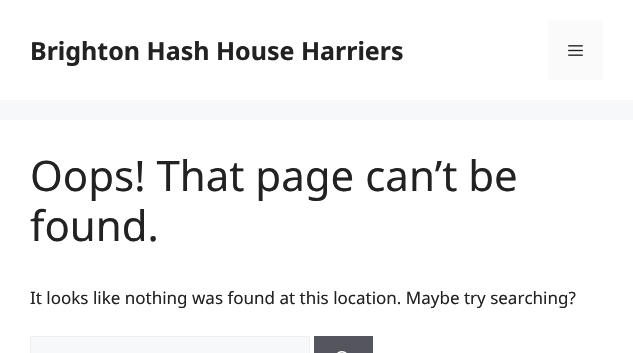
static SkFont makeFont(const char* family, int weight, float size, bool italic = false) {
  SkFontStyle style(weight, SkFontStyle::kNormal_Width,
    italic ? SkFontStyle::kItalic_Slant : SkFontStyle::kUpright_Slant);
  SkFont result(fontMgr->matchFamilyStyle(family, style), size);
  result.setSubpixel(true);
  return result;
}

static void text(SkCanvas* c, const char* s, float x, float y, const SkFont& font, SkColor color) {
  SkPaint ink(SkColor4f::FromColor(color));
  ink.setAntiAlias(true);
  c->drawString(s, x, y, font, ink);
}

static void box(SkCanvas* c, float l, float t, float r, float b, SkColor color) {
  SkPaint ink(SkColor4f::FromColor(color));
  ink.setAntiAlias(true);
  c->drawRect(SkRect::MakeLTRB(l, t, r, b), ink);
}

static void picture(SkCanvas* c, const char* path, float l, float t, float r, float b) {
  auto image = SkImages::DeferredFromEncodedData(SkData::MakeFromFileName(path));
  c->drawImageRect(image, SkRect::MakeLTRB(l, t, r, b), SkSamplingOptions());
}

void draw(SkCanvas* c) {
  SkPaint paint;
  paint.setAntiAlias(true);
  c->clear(0xfff7f8f9);
  box(c, 0, 0, 633, 100, 0xffffffff);
  SkFont face1 = makeFont("Noto Sans", 700, 25);
  text(c, "Brighton Hash House Harriers", 30, 60, face1, 0xff222222);
  box(c, 548, 20, 603, 80, 0xfffafafa);
  picture(c, "img_01.png", 568, 45, 583, 56);
  box(c, 0, 120, 633, 353, 0xffffffff);
  SkFont face2 = makeFont("Noto Sans", 400, 42);
  text(c, "Oops! That page can’t be", 30, 191, face2, 0xff222222);
  text(c, "found.", 30, 241, face2, 0xff222222);
  SkFont face3 = makeFont("Noto Sans", 400, 17);
  text(c, "It looks like nothing was found at this location. Maybe try searching?", 30, 304, face3, 0xff222222);
  paint.setColor(0xfff7f8f9);
  c->drawRect(SkRect::MakeLTRB(30.5f, 336.5f, 309.5f, 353.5f), paint);
  paint.setStyle(SkPaint::kStroke_Style);
  paint.setStrokeWidth(1);
  paint.setColor(0xfff0f0f0);
  c->drawRect(SkRect::MakeLTRB(30.5f, 336.5f, 309.5f, 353.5f), paint);
  box(c, 314, 336, 373, 353, 0xff55555e);
  picture(c, "img_02.png", 337, 351, 347, 353);
}
